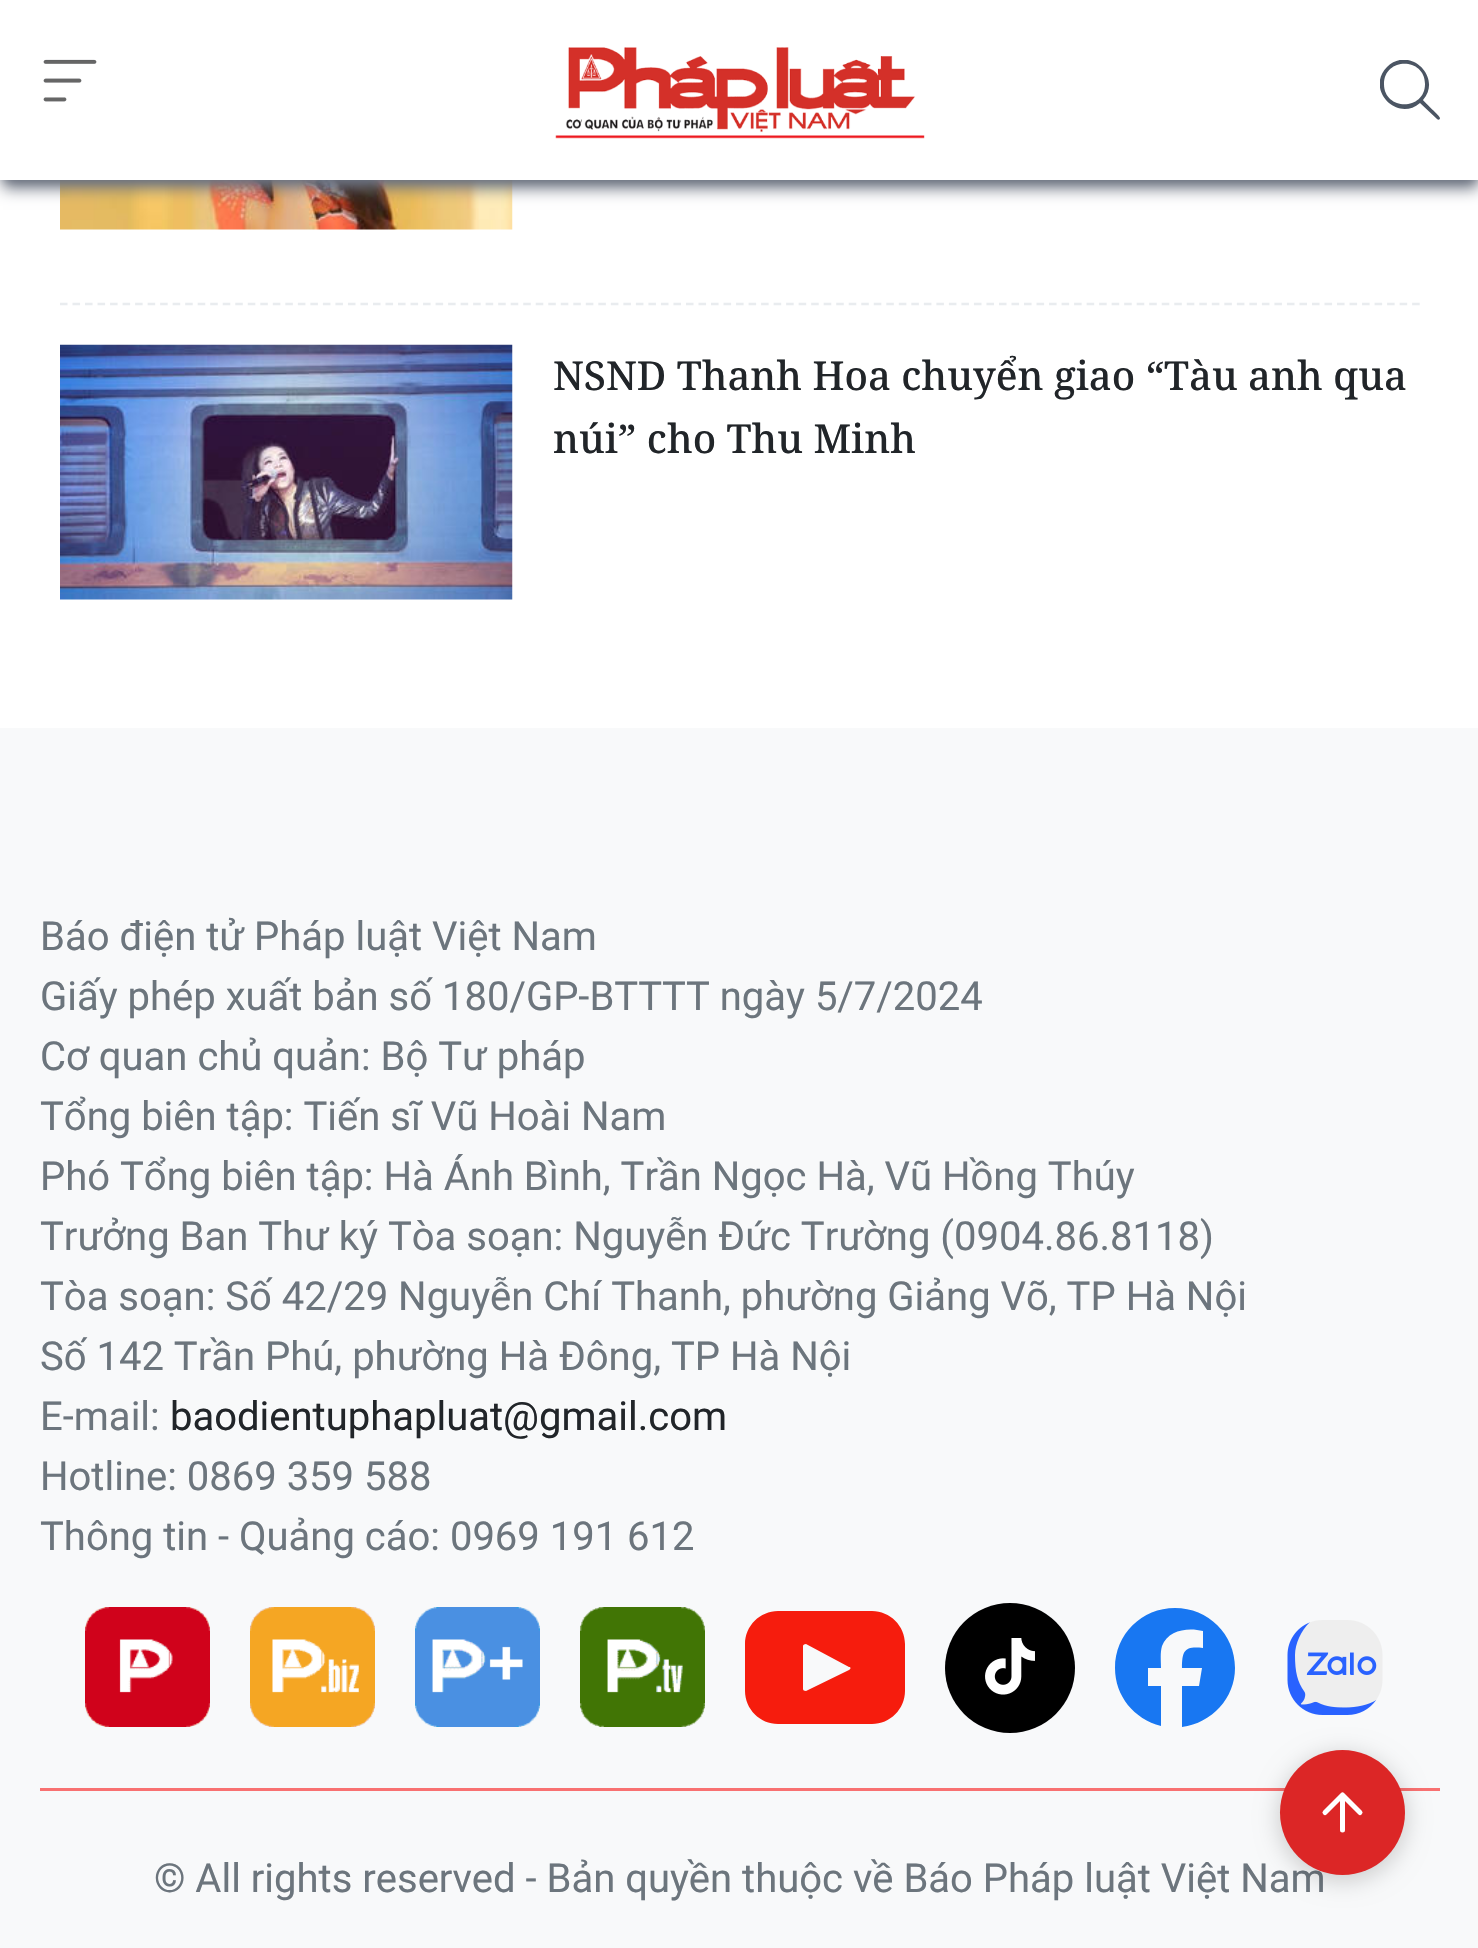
static SkFont makeFont(const char* family, int weight, float size, bool italic = false) {
  SkFontStyle style(weight, SkFontStyle::kNormal_Width,
    italic ? SkFontStyle::kItalic_Slant : SkFontStyle::kUpright_Slant);
  SkFont result(fontMgr->matchFamilyStyle(family, style), size);
  result.setSubpixel(true);
  return result;
}

static void text(SkCanvas* c, const char* s, float x, float y, const SkFont& font, SkColor color) {
  SkPaint ink(SkColor4f::FromColor(color));
  ink.setAntiAlias(true);
  c->drawString(s, x, y, font, ink);
}

static void box(SkCanvas* c, float l, float t, float r, float b, SkColor color) {
  SkPaint ink(SkColor4f::FromColor(color));
  ink.setAntiAlias(true);
  c->drawRect(SkRect::MakeLTRB(l, t, r, b), ink);
}

static void picture(SkCanvas* c, const char* path, float l, float t, float r, float b) {
  auto image = SkImages::DeferredFromEncodedData(SkData::MakeFromFileName(path));
  c->drawImageRect(image, SkRect::MakeLTRB(l, t, r, b), SkSamplingOptions());
}

void draw(SkCanvas* c) {
  SkPaint paint;
  paint.setAntiAlias(true);
  c->clear(0xffffffff);
  picture(c, "img_03.png", 60, 180, 513, 230);
  paint.setColor(0xff6b7280);
  paint.setMaskFilter(SkMaskFilter::MakeBlur(kNormal_SkBlurStyle, 5));
  c->drawRect(SkRect::MakeLTRB(5, 10, 1475, 180), paint);
  paint.setMaskFilter(nullptr);
  paint.setMaskFilter(SkMaskFilter::MakeBlur(kNormal_SkBlurStyle, 7.5f));
  c->drawRect(SkRect::MakeLTRB(3, 13, 1478, 188), paint);
  paint.setMaskFilter(nullptr);
  box(c, 0, 0, 1478, 180, 0xffffffff);
  picture(c, "img_01.png", 43, 59, 97, 102);
  picture(c, "img_02.png", 555, 47, 925, 139);
  c->save();
  c->clipRect(SkRect::MakeLTRB(1380, 60, 1440, 120));
  paint.setColor(0xff4b5563);
  c->drawPath(SkPathBuilder().moveTo(1425, 84).cubicTo(1425, 57, 1384, 57, 1384, 84).cubicTo(1384, 111, 1425, 111, 1425, 84).close().moveTo(1420, 103).cubicTo(1397, 123, 1365, 89, 1387, 67).cubicTo(1409, 45, 1443, 77, 1423, 100).cubicTo(1425, 103, 1440, 116, 1440, 118).cubicTo(1440, 120, 1438, 120, 1437, 119).close().detach(), paint);
  c->restore();
  paint.setStyle(SkPaint::kStroke_Style);
  paint.setStrokeWidth(2.5f);
  paint.setColor(0xffe9ecef);
  paint.setPathEffect(SkDashPathEffect::Make({{7.5f, 5.02f}}, 0));
  c->drawPath(SkPathBuilder().moveTo(60, 304).lineTo(1420, 304).detach(), paint);
  paint.setPathEffect(nullptr);
  picture(c, "img_04.png", 60, 344, 513, 600);
  SkFont face1 = makeFont("Noto Serif", 500, 40);
  text(c, "NSND Thanh Hoa chuyển giao “Tàu anh qua", 553, 390, face1, 0xff212529);
  text(c, "núi” cho Thu Minh", 553, 453, face1, 0xff212529);
  box(c, 0, 728, 1478, 1948, 0xfff8f9fa);
  SkFont face2 = makeFont("Roboto", 400, 40);
  text(c, "Báo điện tử Pháp luật Việt Nam", 40, 950, face2, 0xff6c757d);
  text(c, "Giấy phép xuất bản số 180/GP-BTTTT ngày 5/7/2024", 40, 1010, face2, 0xff6c757d);
  text(c, "Cơ quan chủ quản: Bộ Tư pháp", 40, 1070, face2, 0xff6c757d);
  text(c, "Tổng biên tập: Tiến sĩ Vũ Hoài Nam", 40, 1130, face2, 0xff6c757d);
  text(c, "Phó Tổng biên tập: Hà Ánh Bình, Trần Ngọc Hà, Vũ Hồng Thúy", 40, 1190, face2, 0xff6c757d);
  text(c, "Trưởng Ban Thư ký Tòa soạn: Nguyễn Đức Trường (0904.86.8118)", 40, 1250, face2, 0xff6c757d);
  text(c, "Tòa soạn: Số 42/29 Nguyễn Chí Thanh, phường Giảng Võ, TP Hà Nội", 40, 1310, face2, 0xff6c757d);
  text(c, "Số 142 Trần Phú, phường Hà Đông, TP Hà Nội", 40, 1370, face2, 0xff6c757d);
  text(c, "E-mail:", 40, 1430, face2, 0xff6c757d);
  text(c, "baodientuphapluat@gmail.com", 170, 1430, face2, 0xff212529);
  text(c, "Hotline: 0869 359 588", 40, 1490, face2, 0xff6c757d);
  text(c, "Thông tin - Quảng cáo: 0969 191 612", 40, 1550, face2, 0xff6c757d);
  box(c, 40, 1788, 1440, 1791, 0xfff87171);
  picture(c, "img_05.png", 85, 1607, 210, 1727);
  picture(c, "img_06.png", 250, 1607, 375, 1727);
  picture(c, "img_07.png", 415, 1607, 540, 1727);
  picture(c, "img_08.png", 580, 1607, 705, 1727);
  paint.setStyle(SkPaint::kFill_Style);
  paint.setColor(0xfff61c0d);
  c->drawPath(SkPathBuilder().moveTo(872, 1611).lineTo(778, 1611).cubicTo(760, 1611, 745, 1626, 745, 1644).lineTo(745, 1691).cubicTo(745, 1709, 760, 1724, 778, 1724).lineTo(872, 1724).cubicTo(890, 1724, 905, 1709, 905, 1691).lineTo(905, 1644).cubicTo(905, 1626, 890, 1611, 872, 1611).close().moveTo(849, 1670).lineTo(806, 1691).cubicTo(804, 1691, 803, 1690, 803, 1689).lineTo(803, 1646).cubicTo(803, 1645, 804, 1644, 806, 1644).lineTo(849, 1667).cubicTo(851, 1667, 851, 1669, 849, 1670).close().detach(), paint);
  paint.setColor(0xff000000);
  c->drawCircle(1010, 1668, 65, paint);
  picture(c, "img_09.png", 985, 1638, 1035, 1695);
  paint.setColor(0xff1877f2);
  c->drawPath(SkPathBuilder().moveTo(1235, 1668).cubicTo(1235, 1634, 1208, 1608, 1175, 1608).cubicTo(1142, 1608, 1115, 1634, 1115, 1668).cubicTo(1115, 1696, 1134, 1719, 1161, 1726).lineTo(1161, 1686).lineTo(1148, 1686).lineTo(1148, 1668).lineTo(1161, 1668).cubicTo(1161, 1660, 1160, 1653, 1162, 1646).cubicTo(1168, 1630, 1188, 1627, 1203, 1631).lineTo(1203, 1648).cubicTo(1185, 1646, 1182, 1650, 1182, 1668).lineTo(1202, 1668).lineTo(1199, 1686).lineTo(1182, 1686).lineTo(1182, 1727).cubicTo(1212, 1723, 1235, 1698, 1235, 1668).close().detach(), paint);
  picture(c, "img_10.png", 1287, 1620, 1383, 1715);
  text(c, "© All rights reserved - Bản quyền thuộc về Báo Pháp luật Việt Nam", 154, 1892, face2, 0xff6c757d);
  paint.setColor(0x33000000);
  paint.setMaskFilter(SkMaskFilter::MakeBlur(kNormal_SkBlurStyle, 12.5f));
  c->drawRoundRect(SkRect::MakeLTRB(1280, 1755, 1405, 1880), 62.5f, 62.5f, paint);
  paint.setMaskFilter(nullptr);
  paint.setColor(0xffdc2626);
  c->drawCircle(1342.5f, 1812.5f, 62.5f, paint);
  paint.setStyle(SkPaint::kStroke_Style);
  paint.setStrokeWidth(5);
  paint.setStrokeCap(SkPaint::kRound_Cap);
  paint.setStrokeJoin(SkPaint::kRound_Join);
  paint.setColor(0xffffffff);
  c->drawPath(SkPathBuilder().moveTo(1342.5f, 1830).lineTo(1342.5f, 1795).moveTo(1325, 1812.5f).lineTo(1342.5f, 1795).lineTo(1360, 1812.5f).detach(), paint);
}
